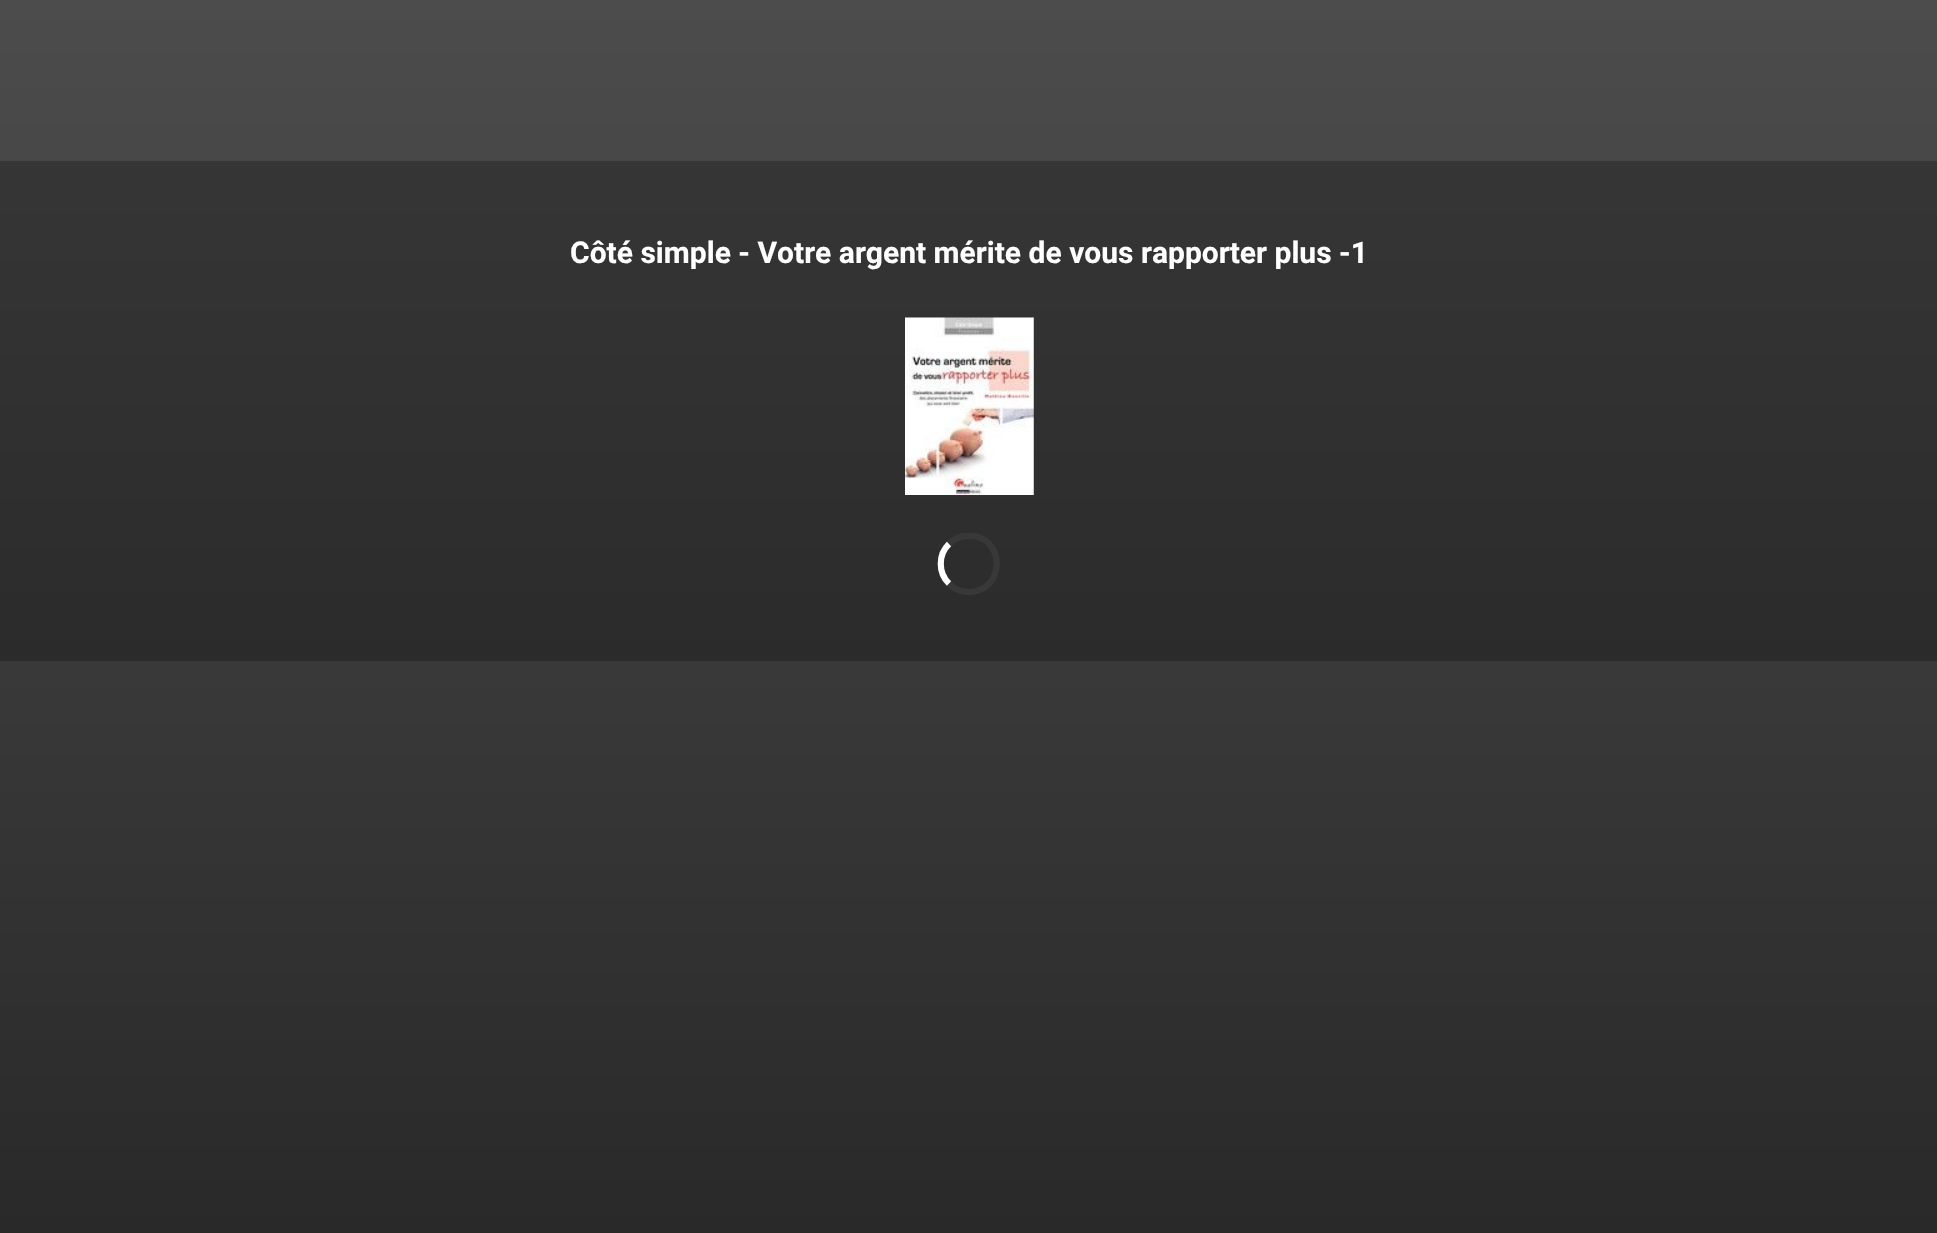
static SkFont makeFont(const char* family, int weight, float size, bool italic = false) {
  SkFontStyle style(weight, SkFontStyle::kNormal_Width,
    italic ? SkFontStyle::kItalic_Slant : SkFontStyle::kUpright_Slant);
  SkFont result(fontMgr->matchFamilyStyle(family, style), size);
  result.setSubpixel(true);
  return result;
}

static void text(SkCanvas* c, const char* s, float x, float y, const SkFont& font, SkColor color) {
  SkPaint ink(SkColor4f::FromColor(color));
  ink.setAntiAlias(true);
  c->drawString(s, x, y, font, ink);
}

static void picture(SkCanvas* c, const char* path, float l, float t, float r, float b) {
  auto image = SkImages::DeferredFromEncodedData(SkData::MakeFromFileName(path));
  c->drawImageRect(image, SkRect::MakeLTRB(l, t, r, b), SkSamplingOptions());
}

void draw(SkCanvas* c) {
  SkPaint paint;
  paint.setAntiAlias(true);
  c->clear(0xffffffff);
  {
    const SkColor colors[] = {0xff4c4c4c, 0xff292929};
    const float stops[] = {0, 1};
    const SkPoint ends[] = {{969, 0}, {969, 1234}};
    paint.setShader(SkGradientShader::MakeLinear(ends, colors, stops, 2, SkTileMode::kClamp));
    paint.setAlpha(255);
  }
  c->drawRect(SkRect::MakeLTRB(0, 0, 1937, 1233), paint);
  {
    const SkColor colors[] = {0xff393939, 0xff1f1f1f};
    const float stops[] = {0, 1};
    const SkPoint ends[] = {{969, 0}, {969, 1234}};
    paint.setShader(SkGradientShader::MakeLinear(ends, colors, stops, 2, SkTileMode::kClamp));
    paint.setAlpha(255);
  }
  c->drawRect(SkRect::MakeLTRB(0, 161, 1937, 661), paint);
  SkFont face1 = makeFont("Roboto", 700, 30);
  text(c, "Côté simple - Votre argent mérite de vous rapporter plus -1", 570, 263, face1, 0xffffffff);
  picture(c, "img_01.png", 905, 317, 1034, 495);
  c->save();
  c->clipRect(SkRect::MakeLTRB(906, 533, 1031, 595));
  paint.setStyle(SkPaint::kStroke_Style);
  paint.setStrokeWidth(6.2f);
  paint.setShader(nullptr);
  paint.setColor(0xff383838);
  c->drawPath(SkPathBuilder().moveTo(949, 544).cubicTo(955.5f, 537.5f, 965, 534.5f, 974.5f, 536).cubicTo(1007, 542.5f, 1002.5f, 592, 969, 592).cubicTo(961.5f, 592, 954, 589, 949, 583.5f).detach(), paint);
  c->restore();
  paint.setColor(0xffffffff);
  c->drawPath(SkPathBuilder().moveTo(949, 583.5f).cubicTo(938, 573, 938, 554.5f, 949, 544).detach(), paint);
}
